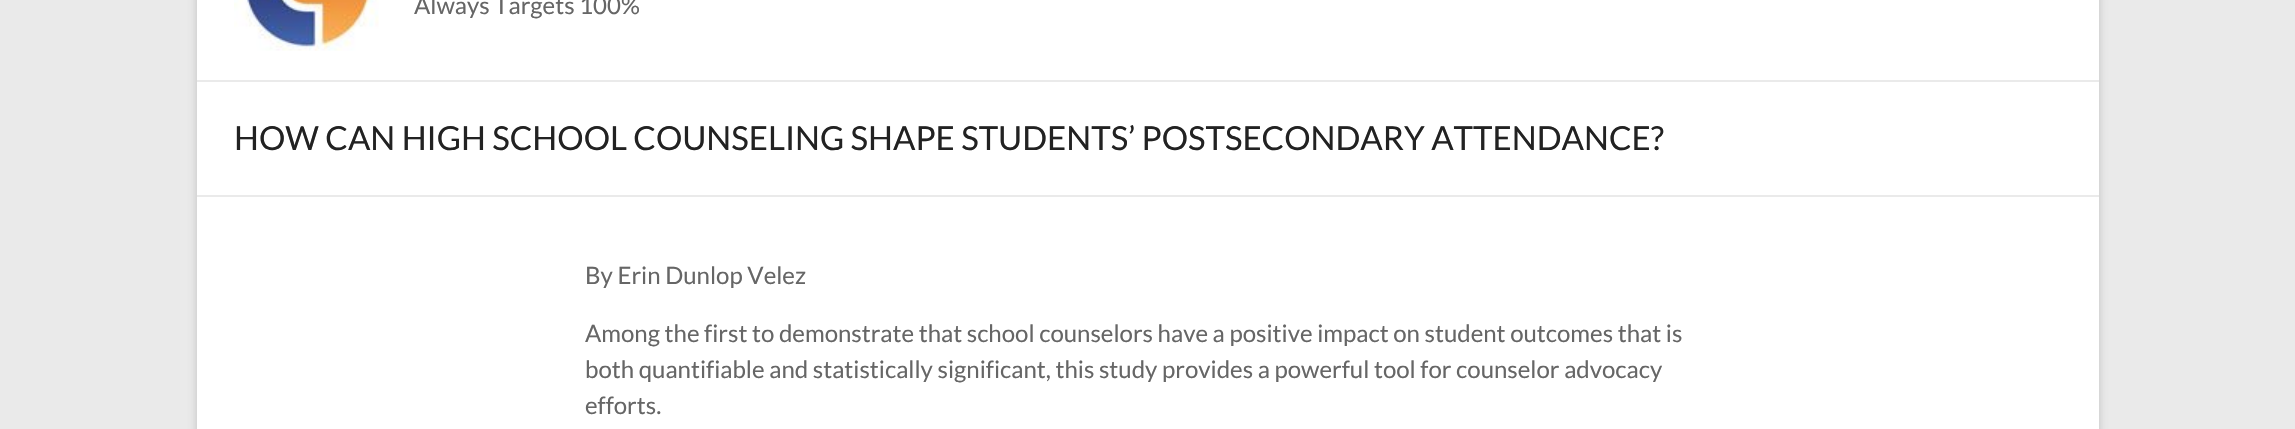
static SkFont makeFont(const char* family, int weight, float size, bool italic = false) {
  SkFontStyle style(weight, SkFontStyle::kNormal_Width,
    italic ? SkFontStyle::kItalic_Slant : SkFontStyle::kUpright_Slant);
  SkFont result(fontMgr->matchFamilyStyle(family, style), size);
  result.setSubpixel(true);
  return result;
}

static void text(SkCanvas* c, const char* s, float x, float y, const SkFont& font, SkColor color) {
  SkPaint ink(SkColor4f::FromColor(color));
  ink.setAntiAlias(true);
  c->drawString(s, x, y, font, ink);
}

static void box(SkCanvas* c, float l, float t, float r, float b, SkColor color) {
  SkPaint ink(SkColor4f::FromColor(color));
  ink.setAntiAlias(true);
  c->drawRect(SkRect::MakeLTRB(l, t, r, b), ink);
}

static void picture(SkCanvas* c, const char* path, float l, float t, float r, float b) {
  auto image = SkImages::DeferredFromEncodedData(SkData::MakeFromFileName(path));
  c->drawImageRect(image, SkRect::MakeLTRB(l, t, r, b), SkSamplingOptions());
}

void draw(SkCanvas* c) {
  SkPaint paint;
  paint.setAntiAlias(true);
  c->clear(0xffeaeaea);
  paint.setColor(0x4d646464);
  paint.setMaskFilter(SkMaskFilter::MakeBlur(kNormal_SkBlurStyle, 4.5f));
  c->drawRect(SkRect::MakeLTRB(197, -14, 2099, 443), paint);
  paint.setMaskFilter(nullptr);
  box(c, 197, 0, 2099, 429, 0xffffffff);
  box(c, 197, 80, 2099, 82, 0xffeaeaea);
  picture(c, "img_01.png", 234, 0, 379, 51);
  SkFont face1 = makeFont("Lato", 400, 24);
  text(c, "Always Targets 100%", 414, 14, face1, 0xff666666);
  box(c, 197, 195, 2099, 197, 0xffeaeaea);
  SkFont face2 = makeFont("Lato", 400, 33);
  text(c, "HOW CAN HIGH SCHOOL COUNSELING SHAPE STUDENTS’ POSTSECONDARY ATTENDANCE?", 234, 150, face2, 0xff222222);
  text(c, "By Erin Dunlop Velez", 585, 284, face1, 0xff666666);
  text(c, "Among the first to demonstrate that school counselors have a positive impact on student outcomes that is", 585, 342, face1, 0xff666666);
  text(c, "both quantifiable and statistically significant, this study provides a powerful tool for counselor advocacy", 585, 378, face1, 0xff666666);
  text(c, "efforts.", 585, 414, face1, 0xff666666);
}
